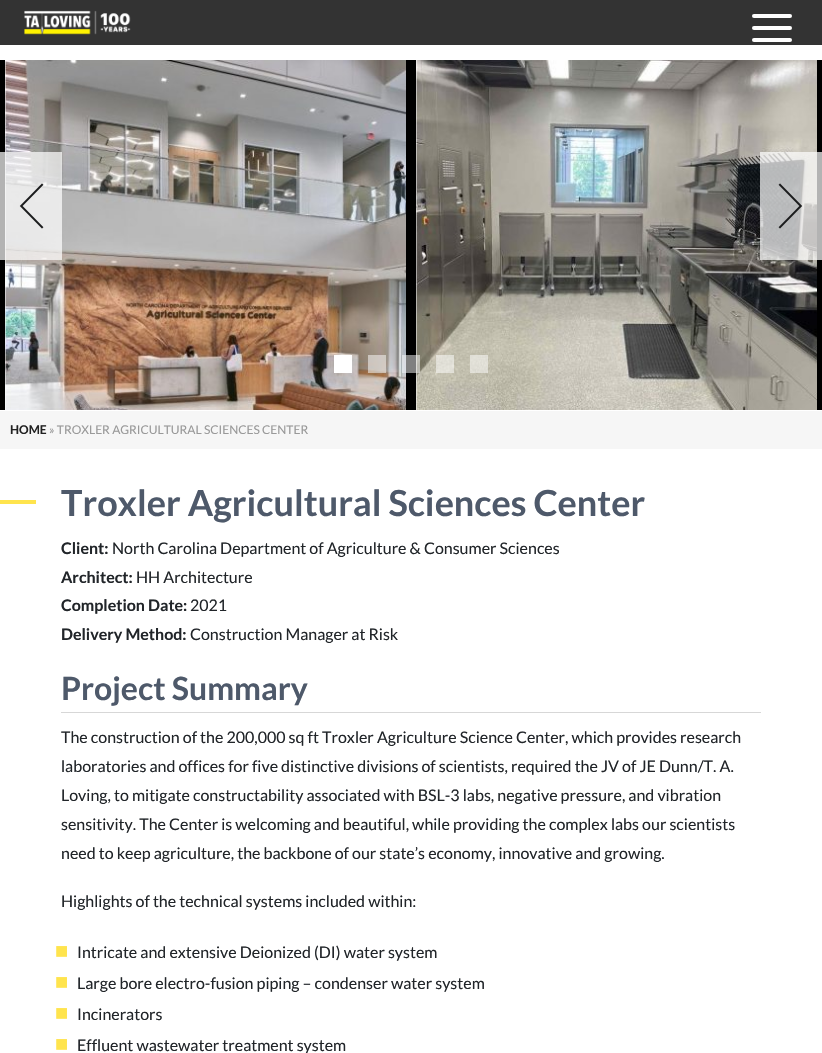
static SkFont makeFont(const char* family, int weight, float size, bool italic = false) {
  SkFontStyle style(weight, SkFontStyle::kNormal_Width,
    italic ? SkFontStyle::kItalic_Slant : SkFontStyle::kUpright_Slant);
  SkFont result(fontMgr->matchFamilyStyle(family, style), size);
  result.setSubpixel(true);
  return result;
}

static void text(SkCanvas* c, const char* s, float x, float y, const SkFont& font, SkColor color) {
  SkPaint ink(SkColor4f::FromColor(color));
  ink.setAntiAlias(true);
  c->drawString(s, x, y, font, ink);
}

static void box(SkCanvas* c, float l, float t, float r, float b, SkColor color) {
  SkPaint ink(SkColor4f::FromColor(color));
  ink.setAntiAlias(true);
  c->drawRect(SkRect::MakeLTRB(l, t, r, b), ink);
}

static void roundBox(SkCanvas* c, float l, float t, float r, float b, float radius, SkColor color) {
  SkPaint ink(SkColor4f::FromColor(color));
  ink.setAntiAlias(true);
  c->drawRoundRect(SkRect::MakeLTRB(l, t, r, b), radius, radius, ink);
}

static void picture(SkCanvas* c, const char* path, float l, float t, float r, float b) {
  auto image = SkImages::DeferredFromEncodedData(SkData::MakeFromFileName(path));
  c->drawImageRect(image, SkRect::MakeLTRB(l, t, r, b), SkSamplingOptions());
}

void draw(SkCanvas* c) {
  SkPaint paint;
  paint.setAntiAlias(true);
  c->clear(0xffffffff);
  box(c, 0, 0, 822, 45, 0xff333333);
  picture(c, "img_01.png", 24, 10, 131, 35);
  roundBox(c, 752, 14, 792, 18, 2, 0xffffffff);
  roundBox(c, 752, 26, 792, 30, 2, 0xffffffff);
  roundBox(c, 752, 38, 792, 42, 2, 0xffffffff);
  box(c, 406, 60, 416, 410, 0xff000000);
  box(c, 0, 60, 5, 410, 0xff000000);
  picture(c, "img_02.png", 5, 60, 406, 410);
  box(c, 817, 60, 822, 410, 0xff000000);
  picture(c, "img_03.png", 416, 60, 817, 410);
  box(c, 0, 152, 62, 260, 0xb3ffffff);
  picture(c, "img_04.png", 19, 183, 44, 229);
  box(c, 760, 152, 822, 260, 0xb3ffffff);
  picture(c, "img_05.png", 778, 183, 803, 229);
  box(c, 334, 355, 352, 373, 0xffffffff);
  box(c, 368, 355, 386, 373, 0x80ffffff);
  box(c, 402, 355, 420, 373, 0x80ffffff);
  box(c, 436, 355, 454, 373, 0x80ffffff);
  box(c, 470, 355, 488, 373, 0x80ffffff);
  box(c, 0, 411, 822, 449, 0xfff6f6f6);
  SkFont face1 = makeFont("Lato", 700, 12);
  text(c, "HOME", 10, 434, face1, 0xff222222);
  SkFont face2 = makeFont("Lato", 400, 12);
  text(c, "» TROXLER AGRICULTURAL SCIENCES CENTER", 49, 434, face2, 0xff999999);
  box(c, 0, 500, 36, 504, 0xffffe44d);
  SkFont face3 = makeFont("Lato", 700, 36);
  text(c, "Troxler Agricultural Sciences Center", 61, 516, face3, 0xff4e596a);
  SkFont face4 = makeFont("Lato", 700, 16);
  text(c, "Client:", 61, 554, face4, 0xff212529);
  SkFont face5 = makeFont("Lato", 400, 16);
  text(c, "North Carolina Department of Agriculture & Consumer Sciences", 112, 554, face5, 0xff212529);
  text(c, "Architect:", 61, 583, face4, 0xff212529);
  text(c, "HH Architecture", 136, 583, face5, 0xff212529);
  text(c, "Completion Date:", 61, 611, face4, 0xff212529);
  text(c, "2021", 190, 611, face5, 0xff212529);
  text(c, "Delivery Method:", 61, 640, face4, 0xff212529);
  text(c, "Construction Manager at Risk", 190, 640, face5, 0xff212529);
  box(c, 61, 712, 761, 713, 0xffd7d7d7);
  SkFont face6 = makeFont("Lato", 700, 32);
  text(c, "Project Summary", 61, 700, face6, 0xff4e596a);
  text(c, "The construction of the 200,000 sq ft Troxler Agriculture Science Center, which provides research", 61, 743, face5, 0xff212529);
  text(c, "laboratories and offices for five distinctive divisions of scientists, required the JV of JE Dunn/T. A.", 61, 772, face5, 0xff212529);
  text(c, "Loving, to mitigate constructability associated with BSL-3 labs, negative pressure, and vibration", 61, 801, face5, 0xff212529);
  text(c, "sensitivity. The Center is welcoming and beautiful, while providing the complex labs our scientists", 61, 830, face5, 0xff212529);
  text(c, "need to keep agriculture, the backbone of our state’s economy, innovative and growing.", 61, 859, face5, 0xff212529);
  text(c, "Highlights of the technical systems included within:", 61, 907, face5, 0xff212529);
  SkFont face7 = makeFont("Liberation Sans", 700, 22);
  text(c, "■", 55, 958, face7, 0xffffe44d);
  text(c, "Intricate and extensive Deionized (DI) water system", 77, 958, face5, 0xff212529);
  text(c, "■", 55, 989, face7, 0xffffe44d);
  text(c, "Large bore electro-fusion piping – condenser water system", 77, 989, face5, 0xff212529);
  text(c, "■", 55, 1020, face7, 0xffffe44d);
  text(c, "Incinerators", 77, 1020, face5, 0xff212529);
  text(c, "■", 55, 1051, face7, 0xffffe44d);
  text(c, "Effluent wastewater treatment system", 77, 1051, face5, 0xff212529);
}
